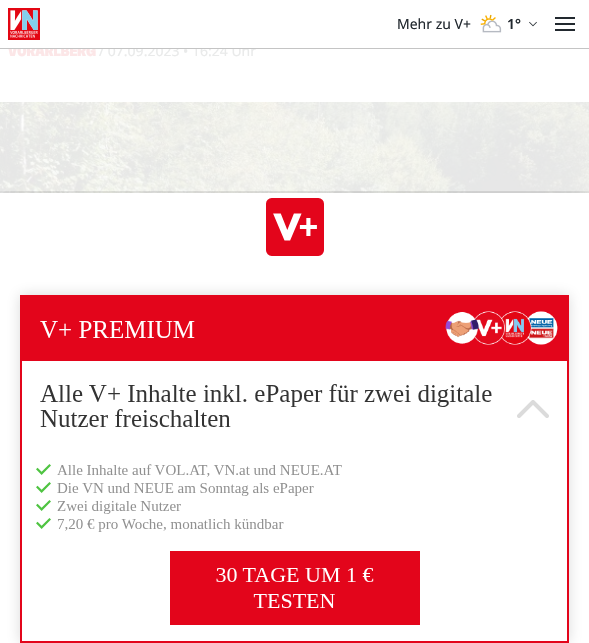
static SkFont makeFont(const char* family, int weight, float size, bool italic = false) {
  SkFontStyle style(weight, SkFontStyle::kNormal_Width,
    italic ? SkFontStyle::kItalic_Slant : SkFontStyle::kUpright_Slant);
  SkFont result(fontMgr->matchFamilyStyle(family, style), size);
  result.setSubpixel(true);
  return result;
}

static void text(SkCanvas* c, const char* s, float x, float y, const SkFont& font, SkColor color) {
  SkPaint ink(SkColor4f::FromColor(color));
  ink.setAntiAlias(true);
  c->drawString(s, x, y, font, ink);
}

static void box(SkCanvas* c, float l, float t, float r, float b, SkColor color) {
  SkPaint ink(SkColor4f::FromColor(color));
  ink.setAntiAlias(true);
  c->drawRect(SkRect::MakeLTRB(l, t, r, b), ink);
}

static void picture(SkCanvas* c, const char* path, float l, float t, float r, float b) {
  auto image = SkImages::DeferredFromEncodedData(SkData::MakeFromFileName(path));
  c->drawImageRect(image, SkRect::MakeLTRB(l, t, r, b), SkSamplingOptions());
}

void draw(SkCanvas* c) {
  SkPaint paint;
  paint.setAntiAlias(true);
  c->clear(0xffffffff);
  SkFont face1 = makeFont("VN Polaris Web", 900, 14);
  text(c, "VORARLBERG", 8, 56, face1, 0xfffce6e7);
  SkFont face2 = makeFont("Noto Sans", 400, 14);
  text(c, "/ 07.09.2023 • 16:24 Uhr", 99, 56, face2, 0xffe9eaea);
  box(c, 8, 45, 244, 48, 0xffffffff);
  box(c, 0, 48, 589, 49, 0xffc4c4c4);
  picture(c, "img_01.png", 8, 8, 40, 40);
  text(c, "Mehr zu V+", 397, 29, face2, 0xff22292f);
  picture(c, "img_02.png", 480, 14, 502, 33);
  SkFont face3 = makeFont("Noto Sans", 600, 14);
  text(c, "1°", 507, 29, face3, 0xff22292f);
  picture(c, "img_03.png", 529, 21, 537, 27);
  picture(c, "img_04.png", 555, 17, 575, 31);
  picture(c, "img_05.png", 0, 102, 589, 193);
  picture(c, "img_06.png", 0, 191, 589, 643);
}
